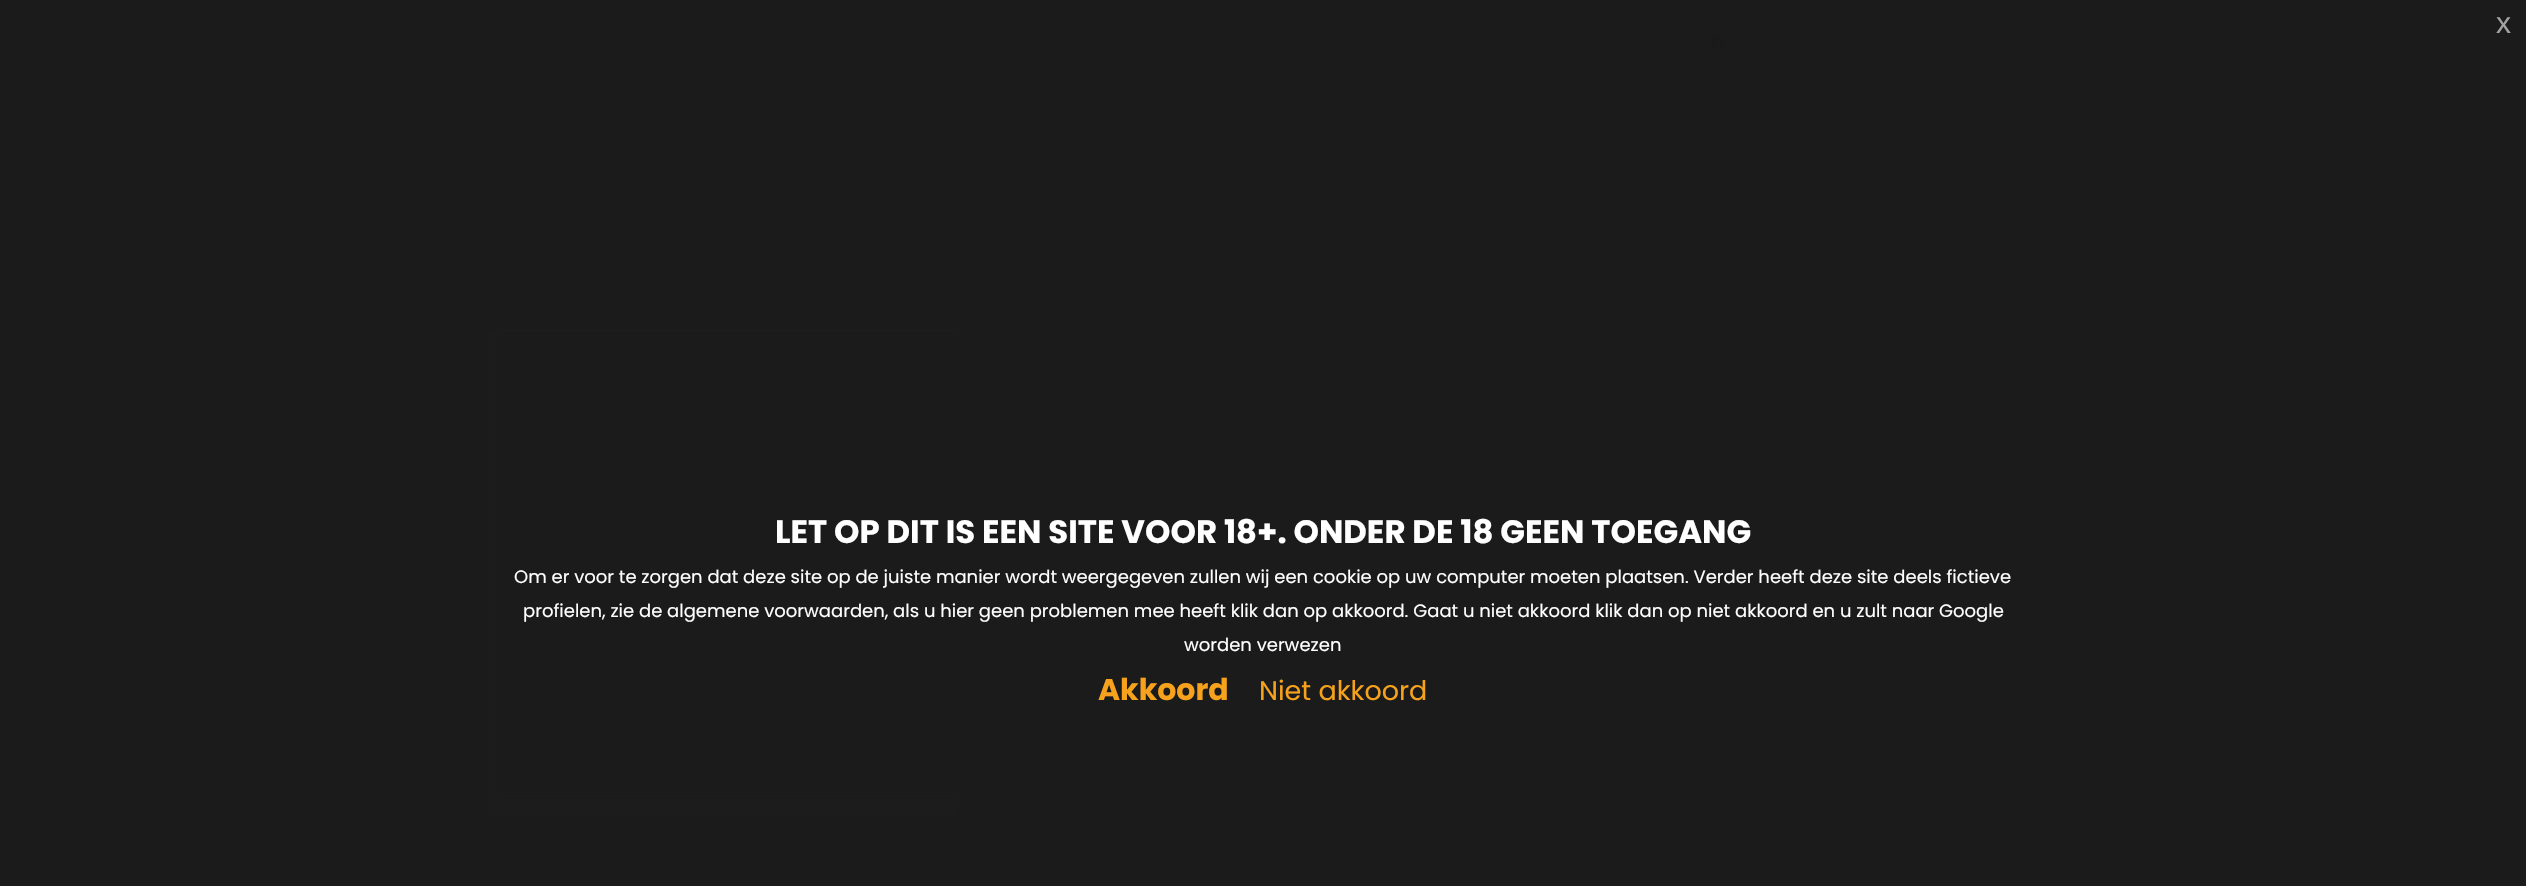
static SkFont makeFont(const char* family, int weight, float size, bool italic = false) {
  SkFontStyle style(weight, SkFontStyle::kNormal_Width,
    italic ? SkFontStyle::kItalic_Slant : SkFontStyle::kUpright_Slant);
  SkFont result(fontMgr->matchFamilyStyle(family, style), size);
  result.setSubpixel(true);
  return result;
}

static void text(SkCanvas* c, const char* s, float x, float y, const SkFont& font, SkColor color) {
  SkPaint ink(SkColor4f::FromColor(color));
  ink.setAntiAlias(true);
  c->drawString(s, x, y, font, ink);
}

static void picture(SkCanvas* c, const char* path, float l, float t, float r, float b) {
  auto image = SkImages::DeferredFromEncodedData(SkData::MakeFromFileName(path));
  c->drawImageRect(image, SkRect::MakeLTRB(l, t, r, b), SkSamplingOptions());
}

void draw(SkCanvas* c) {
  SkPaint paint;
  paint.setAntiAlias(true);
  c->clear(0xff1b1b1b);
  SkFont face1 = makeFont("Liberation Sans", 400, 30);
  text(c, "x", 2496, 33, face1, 0xffa2a2a2);
  picture(c, "img_02.png", 485, 329, 956, 819);
  SkFont face2 = makeFont("Poppins", 700, 32.4f);
  text(c, "LET OP DIT IS EEN SITE VOOR 18+. ONDER DE 18 GEEN TOEGANG", 775, 543, face2, 0xffffffff);
  SkFont face3 = makeFont("Poppins", 400, 18);
  text(c, "Om er voor te zorgen dat deze site op de juiste manier wordt weergegeven zullen wij een cookie op uw computer moeten plaatsen. Verder heeft deze site deels fictieve", 514, 583, face3, 0xffffffff);
  text(c, "profielen, zie de algemene voorwaarden, als u hier geen problemen mee heeft klik dan op akkoord. Gaat u niet akkoord klik dan op niet akkoord en u zult naar Google", 523, 617, face3, 0xffffffff);
  text(c, "worden verwezen", 1184, 651, face3, 0xffffffff);
  SkFont face4 = makeFont("Poppins", 700, 30);
  text(c, "Akkoord", 1098, 700, face4, 0xfff6a21d);
  SkFont face5 = makeFont("Poppins", 400, 27);
  text(c, "Niet akkoord", 1259, 700, face5, 0xfff6a21d);
  picture(c, "img_01.png", 1708, 32, 1729, 48);
}
